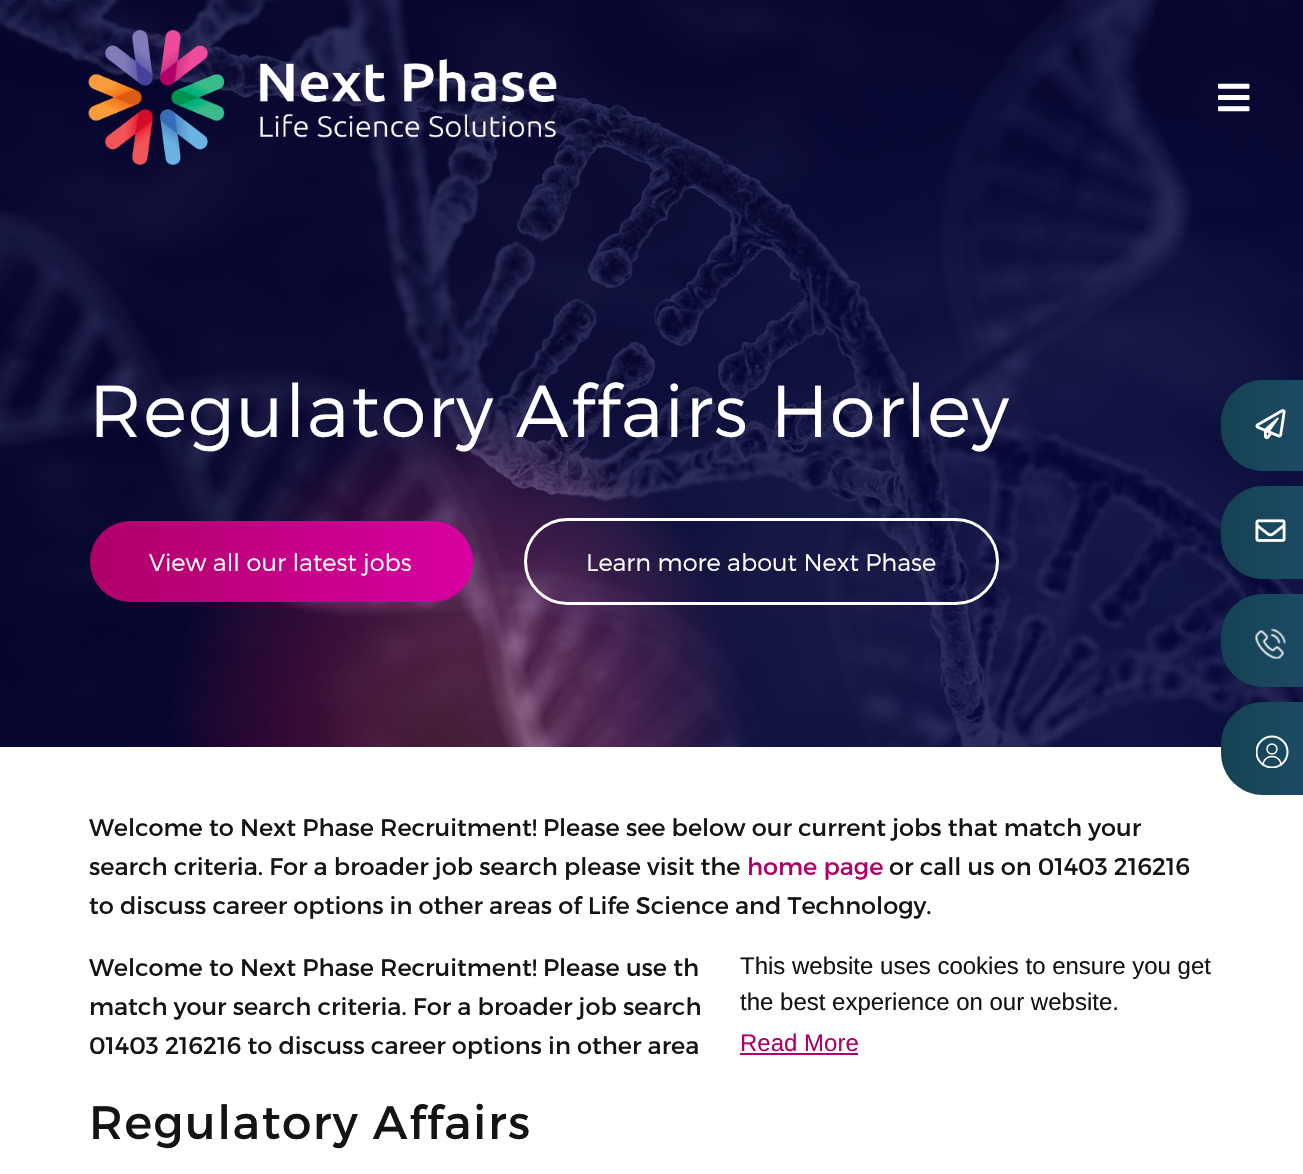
static SkFont makeFont(const char* family, int weight, float size, bool italic = false) {
  SkFontStyle style(weight, SkFontStyle::kNormal_Width,
    italic ? SkFontStyle::kItalic_Slant : SkFontStyle::kUpright_Slant);
  SkFont result(fontMgr->matchFamilyStyle(family, style), size);
  result.setSubpixel(true);
  return result;
}

static void text(SkCanvas* c, const char* s, float x, float y, const SkFont& font, SkColor color) {
  SkPaint ink(SkColor4f::FromColor(color));
  ink.setAntiAlias(true);
  c->drawString(s, x, y, font, ink);
}

static void spacedText(SkCanvas* c, const char* s, float x, float y, const SkFont& font, const SkPaint& ink, float letter, float word) {
  std::vector<SkGlyphID> glyphs(font.countText(s, strlen(s), SkTextEncoding::kUTF8));
  std::vector<float> xs(glyphs.size());
  font.textToGlyphs(s, strlen(s), SkTextEncoding::kUTF8, glyphs);
  font.getXPos(glyphs, xs, x);
  float extra = 0;
  for (size_t i = 0; i < glyphs.size(); i++) {
    xs[i] += extra;
    extra += letter + word * (glyphs[i] == font.unicharToGlyph(' '));
  }
  c->drawTextBlob(SkTextBlob::MakeFromPosHGlyphs(glyphs, xs, y, font), 0, 0, ink);
}

static void box(SkCanvas* c, float l, float t, float r, float b, SkColor color) {
  SkPaint ink(SkColor4f::FromColor(color));
  ink.setAntiAlias(true);
  c->drawRect(SkRect::MakeLTRB(l, t, r, b), ink);
}

static void picture(SkCanvas* c, const char* path, float l, float t, float r, float b) {
  auto image = SkImages::DeferredFromEncodedData(SkData::MakeFromFileName(path));
  c->drawImageRect(image, SkRect::MakeLTRB(l, t, r, b), SkSamplingOptions());
}

void draw(SkCanvas* c) {
  SkPaint paint;
  paint.setAntiAlias(true);
  c->clear(0xffffffff);
  picture(c, "img_03.png", 0, 0, 1303, 747);
  picture(c, "img_01.png", 88, 30, 557, 165);
  picture(c, "img_02.png", 1218, 83, 1250, 112);
  SkFont face1 = makeFont("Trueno", 300, 73.25f);
  paint.setColor(0xffffffff);
  spacedText(c, "Regulatory Affairs Horley", 89, 437, face1, paint, 1.5f, 0);
  {
    const SkColor colors[] = {0xffd800a1, 0xffaf0068};
    const float stops[] = {0, 1};
    const SkPoint ends[] = {{473, 561}, {90, 561}};
    paint.setShader(SkGradientShader::MakeLinear(ends, colors, stops, 2, SkTileMode::kClamp));
    paint.setAlpha(255);
  }
  c->drawRoundRect(SkRect::MakeLTRB(90, 521, 473, 602), 40.5f, 40.5f, paint);
  SkFont face2 = makeFont("Trueno", 300, 24);
  text(c, "View all our latest jobs", 149, 571, face2, 0xffffffff);
  paint.setStyle(SkPaint::kStroke_Style);
  paint.setStrokeWidth(3);
  paint.setShader(nullptr);
  paint.setColor(0xffffffff);
  c->drawRoundRect(SkRect::MakeLTRB(525.5f, 519.5f, 997.5f, 603.5f), 42, 42, paint);
  text(c, "Learn more about Next Phase", 586, 571, face2, 0xffffffff);
  paint.setStyle(SkPaint::kFill_Style);
  {
    const SkColor colors[] = {0xff396eb6, 0xff154252};
    const float stops[] = {0, 1};
    const SkPoint ends[] = {{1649, 426}, {1221, 426}};
    paint.setShader(SkGradientShader::MakeLinear(ends, colors, stops, 2, SkTileMode::kClamp));
    paint.setAlpha(255);
  }
  c->drawPath(SkPathBuilder().moveTo(1263, 380).lineTo(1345, 380).lineTo(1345, 471).lineTo(1263, 471).cubicTo(1240, 471, 1221, 452, 1221, 429).lineTo(1221, 422).cubicTo(1221, 399, 1240, 380, 1263, 380).close().detach(), paint);
  picture(c, "img_04.png", 1255, 409, 1286, 440);
  {
    const SkColor colors[] = {0xff396eb6, 0xff154252};
    const float stops[] = {0, 1};
    const SkPoint ends[] = {{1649, 533}, {1221, 533}};
    paint.setShader(SkGradientShader::MakeLinear(ends, colors, stops, 2, SkTileMode::kClamp));
    paint.setAlpha(255);
  }
  c->drawPath(SkPathBuilder().moveTo(1263, 486).lineTo(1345, 486).lineTo(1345, 579).lineTo(1263, 579).cubicTo(1240, 579, 1221, 560, 1221, 537).lineTo(1221, 528).cubicTo(1221, 505, 1240, 486, 1263, 486).close().detach(), paint);
  picture(c, "img_05.png", 1255, 519, 1286, 542);
  {
    const SkColor colors[] = {0xff396eb6, 0xff154252};
    const float stops[] = {0, 1};
    const SkPoint ends[] = {{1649, 641}, {1221, 641}};
    paint.setShader(SkGradientShader::MakeLinear(ends, colors, stops, 2, SkTileMode::kClamp));
    paint.setAlpha(255);
  }
  c->drawPath(SkPathBuilder().moveTo(1263, 594).lineTo(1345, 594).lineTo(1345, 687).lineTo(1263, 687).cubicTo(1240, 687, 1221, 668, 1221, 645).lineTo(1221, 636).cubicTo(1221, 613, 1240, 594, 1263, 594).close().detach(), paint);
  picture(c, "img_06.png", 1255, 628, 1286, 659);
  {
    const SkColor colors[] = {0xff396eb6, 0xff154252};
    const float stops[] = {0, 1};
    const SkPoint ends[] = {{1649, 749}, {1221, 749}};
    paint.setShader(SkGradientShader::MakeLinear(ends, colors, stops, 2, SkTileMode::kClamp));
    paint.setAlpha(255);
  }
  c->drawPath(SkPathBuilder().moveTo(1263, 702).lineTo(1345, 702).lineTo(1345, 795).lineTo(1263, 795).cubicTo(1240, 795, 1221, 776, 1221, 753).lineTo(1221, 744).cubicTo(1221, 721, 1240, 702, 1263, 702).close().detach(), paint);
  c->save();
  c->clipRect(SkRect::MakeLTRB(1256, 735, 1289, 768));
  paint.setStyle(SkPaint::kStroke_Style);
  paint.setStrokeWidth(2);
  paint.setShader(nullptr);
  paint.setColor(0xffffffff);
  c->drawCircle(1272, 752, 15.5f, paint);
  c->restore();
  paint.setStrokeWidth(1.5f);
  c->drawCircle(1272, 749, 5, paint);
  c->drawPath(SkPathBuilder().moveTo(1281, 765.5f).cubicTo(1281, 753.5f, 1263, 753.5f, 1263, 765.5f).detach(), paint);
  SkFont face3 = makeFont("Trueno", 400, 24);
  text(c, "Welcome to Next Phase Recruitment! Please see below our current jobs that match your", 89, 836, face3, 0xff141414);
  text(c, "search criteria. For a broader job search please visit the", 89, 875, face3, 0xff141414);
  text(c, "home page", 747, 875, face3, 0xffaf0068);
  text(c, "or call us on 01403 216216", 889, 875, face3, 0xff141414);
  text(c, "to discuss career options in other areas of Life Science and Technology.", 89, 914, face3, 0xff141414);
  text(c, "Welcome to Next Phase Recruitment! Please use th", 89, 976, face3, 0xff141414);
  text(c, "match your search criteria. For a broader job search", 89, 1015, face3, 0xff141414);
  text(c, "01403 216216 to discuss career options in other area", 89, 1054, face3, 0xff141414);
  SkFont face4 = makeFont("Trueno", 400, 46.9f);
  paint.setStyle(SkPaint::kFill_Style);
  paint.setColor(0xff141414);
  spacedText(c, "Regulatory Affairs", 89, 1139, face4, paint, 1.5f, 0);
  SkFont face5 = makeFont("Liberation Sans", 400, 24);
  text(c, "This website uses cookies to ensure you get", 740, 974, face5, 0xff141414);
  text(c, "the best experience on our website.", 740, 1010, face5, 0xff141414);
  text(c, "Read More", 740, 1051, face5, 0xffaf0068);
  box(c, 740, 1053, 858, 1055, 0xffaf0068);
}
